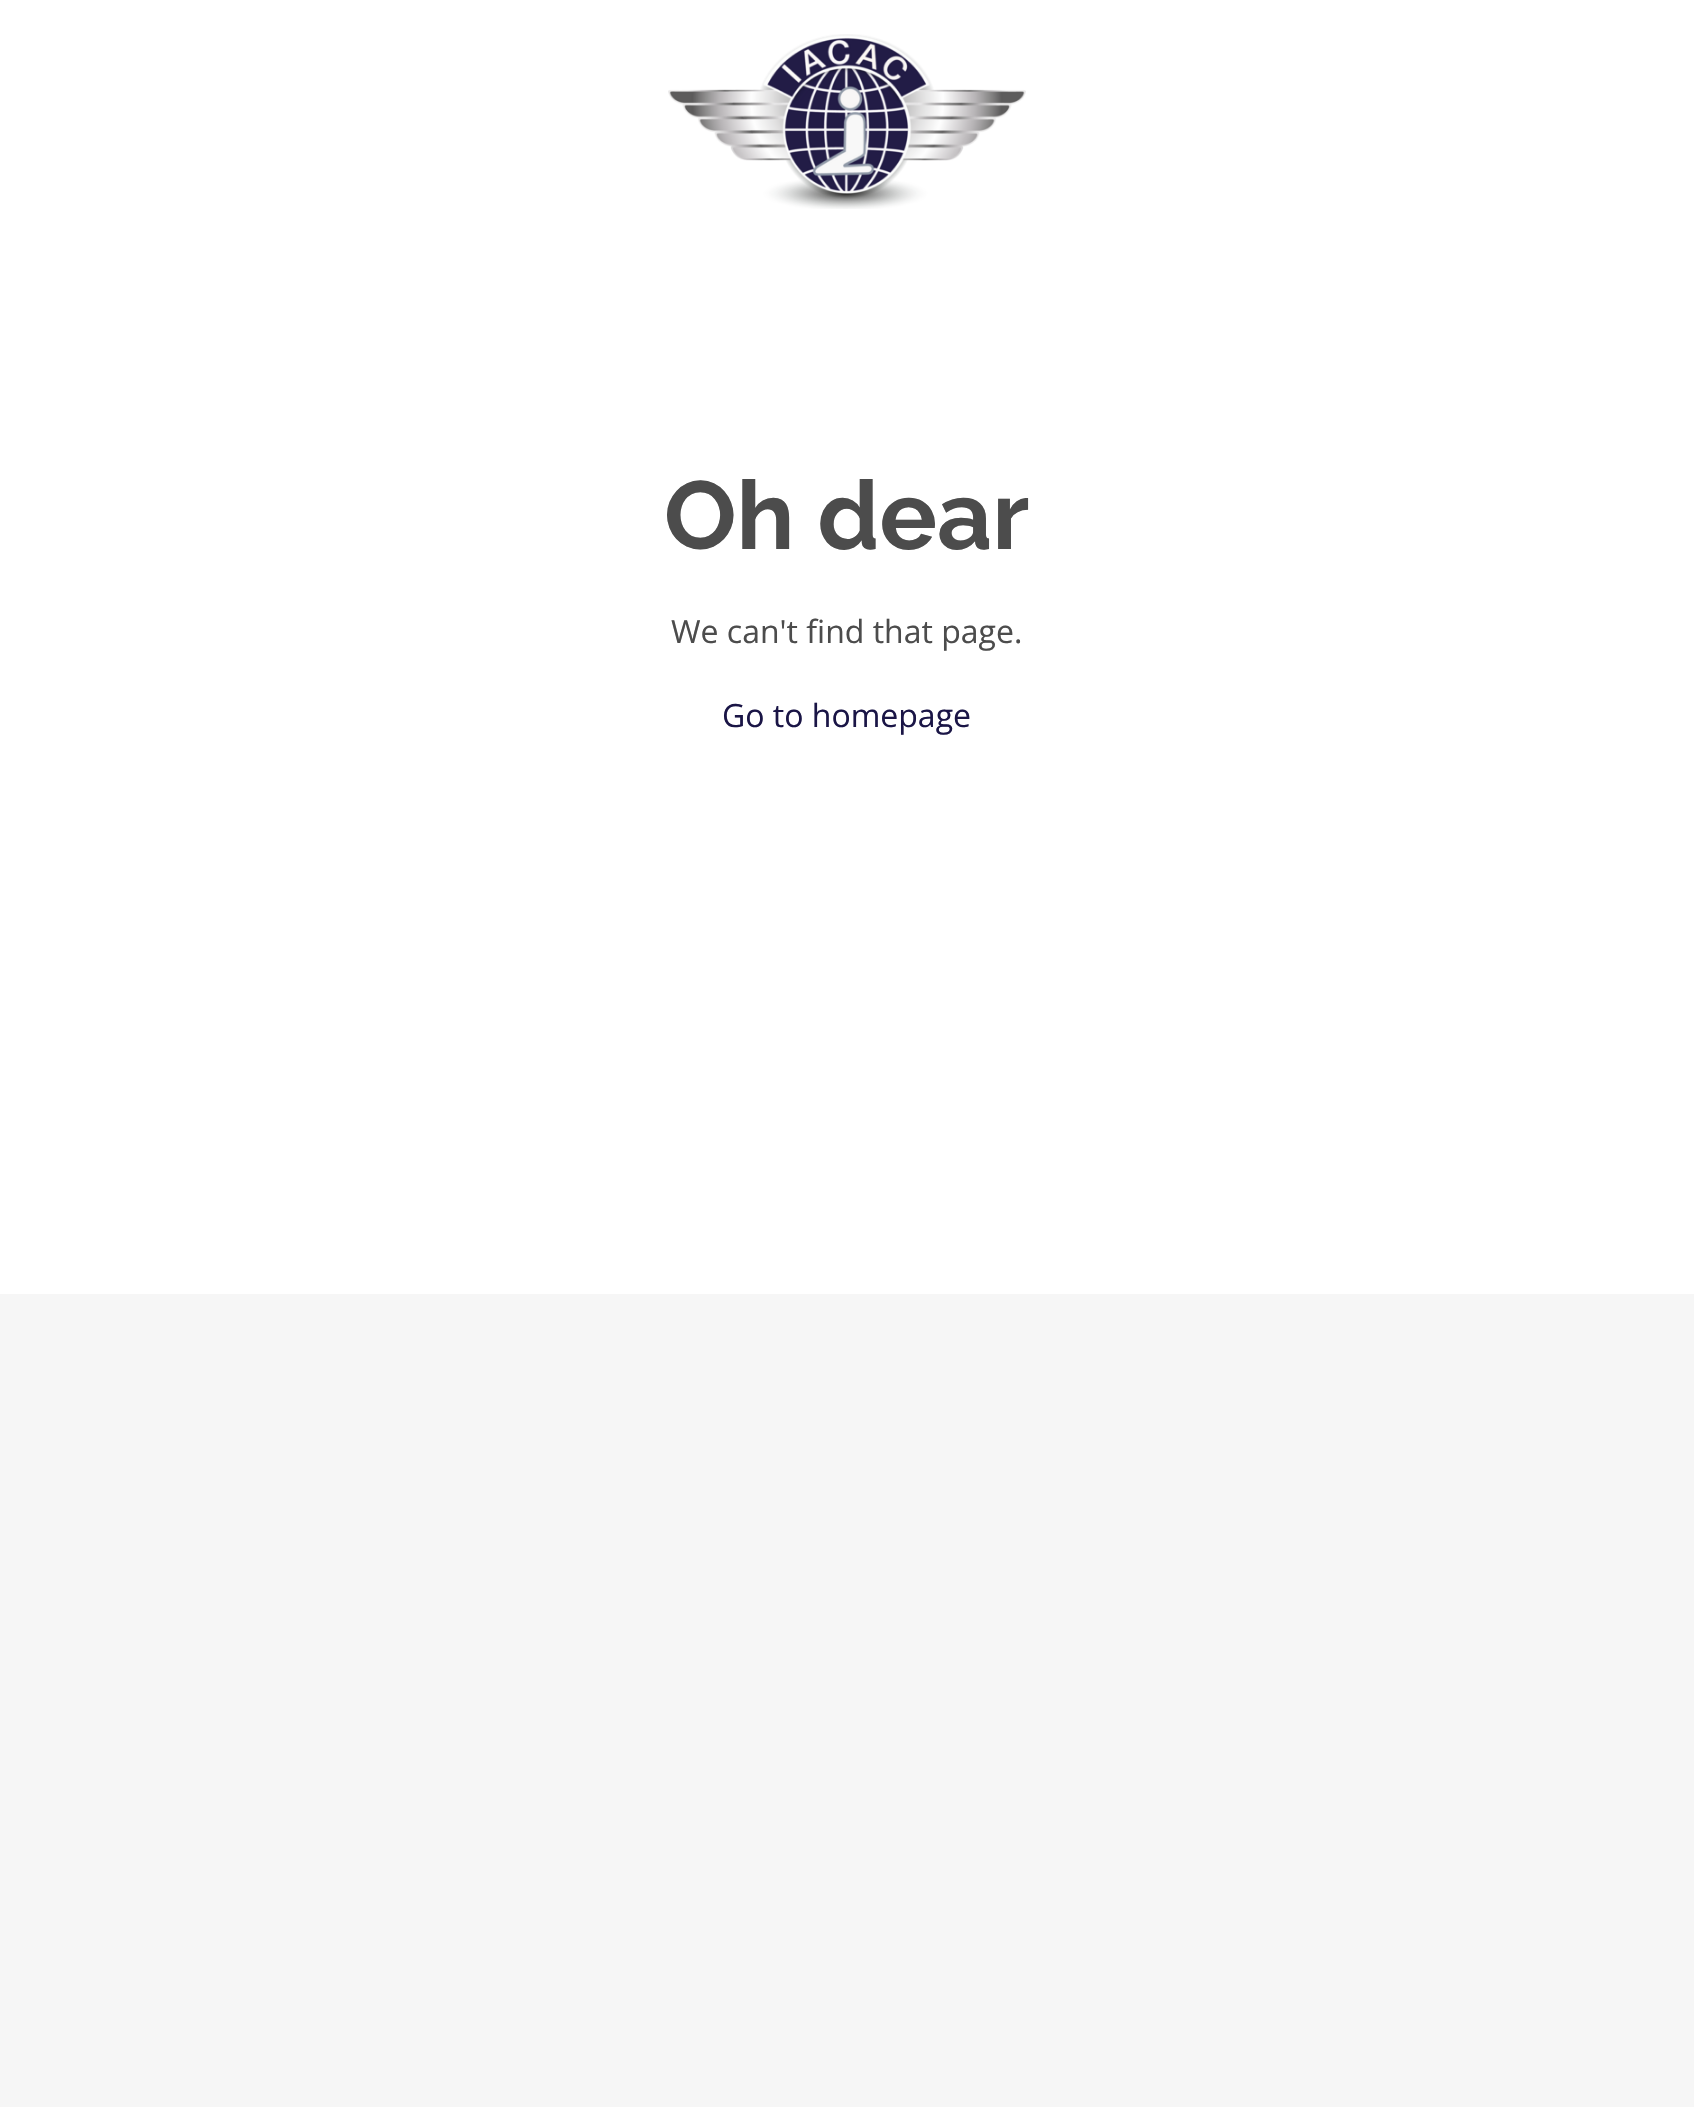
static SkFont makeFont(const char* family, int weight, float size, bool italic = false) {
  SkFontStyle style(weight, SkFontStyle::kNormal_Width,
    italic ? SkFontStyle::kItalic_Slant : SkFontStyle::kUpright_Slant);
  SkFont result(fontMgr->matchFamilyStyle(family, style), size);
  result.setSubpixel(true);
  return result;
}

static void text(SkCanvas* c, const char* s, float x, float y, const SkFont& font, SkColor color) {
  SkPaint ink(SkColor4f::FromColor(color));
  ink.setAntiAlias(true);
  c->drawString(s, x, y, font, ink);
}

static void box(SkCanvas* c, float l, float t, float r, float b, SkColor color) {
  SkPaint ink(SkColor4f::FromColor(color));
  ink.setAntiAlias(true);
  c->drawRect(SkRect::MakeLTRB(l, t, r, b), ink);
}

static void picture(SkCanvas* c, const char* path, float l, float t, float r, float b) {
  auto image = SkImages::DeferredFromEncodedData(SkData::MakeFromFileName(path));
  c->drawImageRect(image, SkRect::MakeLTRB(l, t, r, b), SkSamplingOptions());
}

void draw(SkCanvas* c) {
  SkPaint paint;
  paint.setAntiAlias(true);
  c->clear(0xfff6f6f6);
  box(c, 0, 0, 1694, 1294, 0xffffffff);
  picture(c, "img_01.png", 668, 34, 1026, 209);
  SkFont face1 = makeFont("Raleway", 700, 96);
  text(c, "Oh dear", 664, 549, face1, 0xff4c4c4c);
  SkFont face2 = makeFont("Open Sans", 400, 32);
  text(c, "We can't find that page.", 671, 643, face2, 0xff4c4c4c);
  text(c, "Go to homepage", 722, 727, face2, 0xff1a1546);
}
